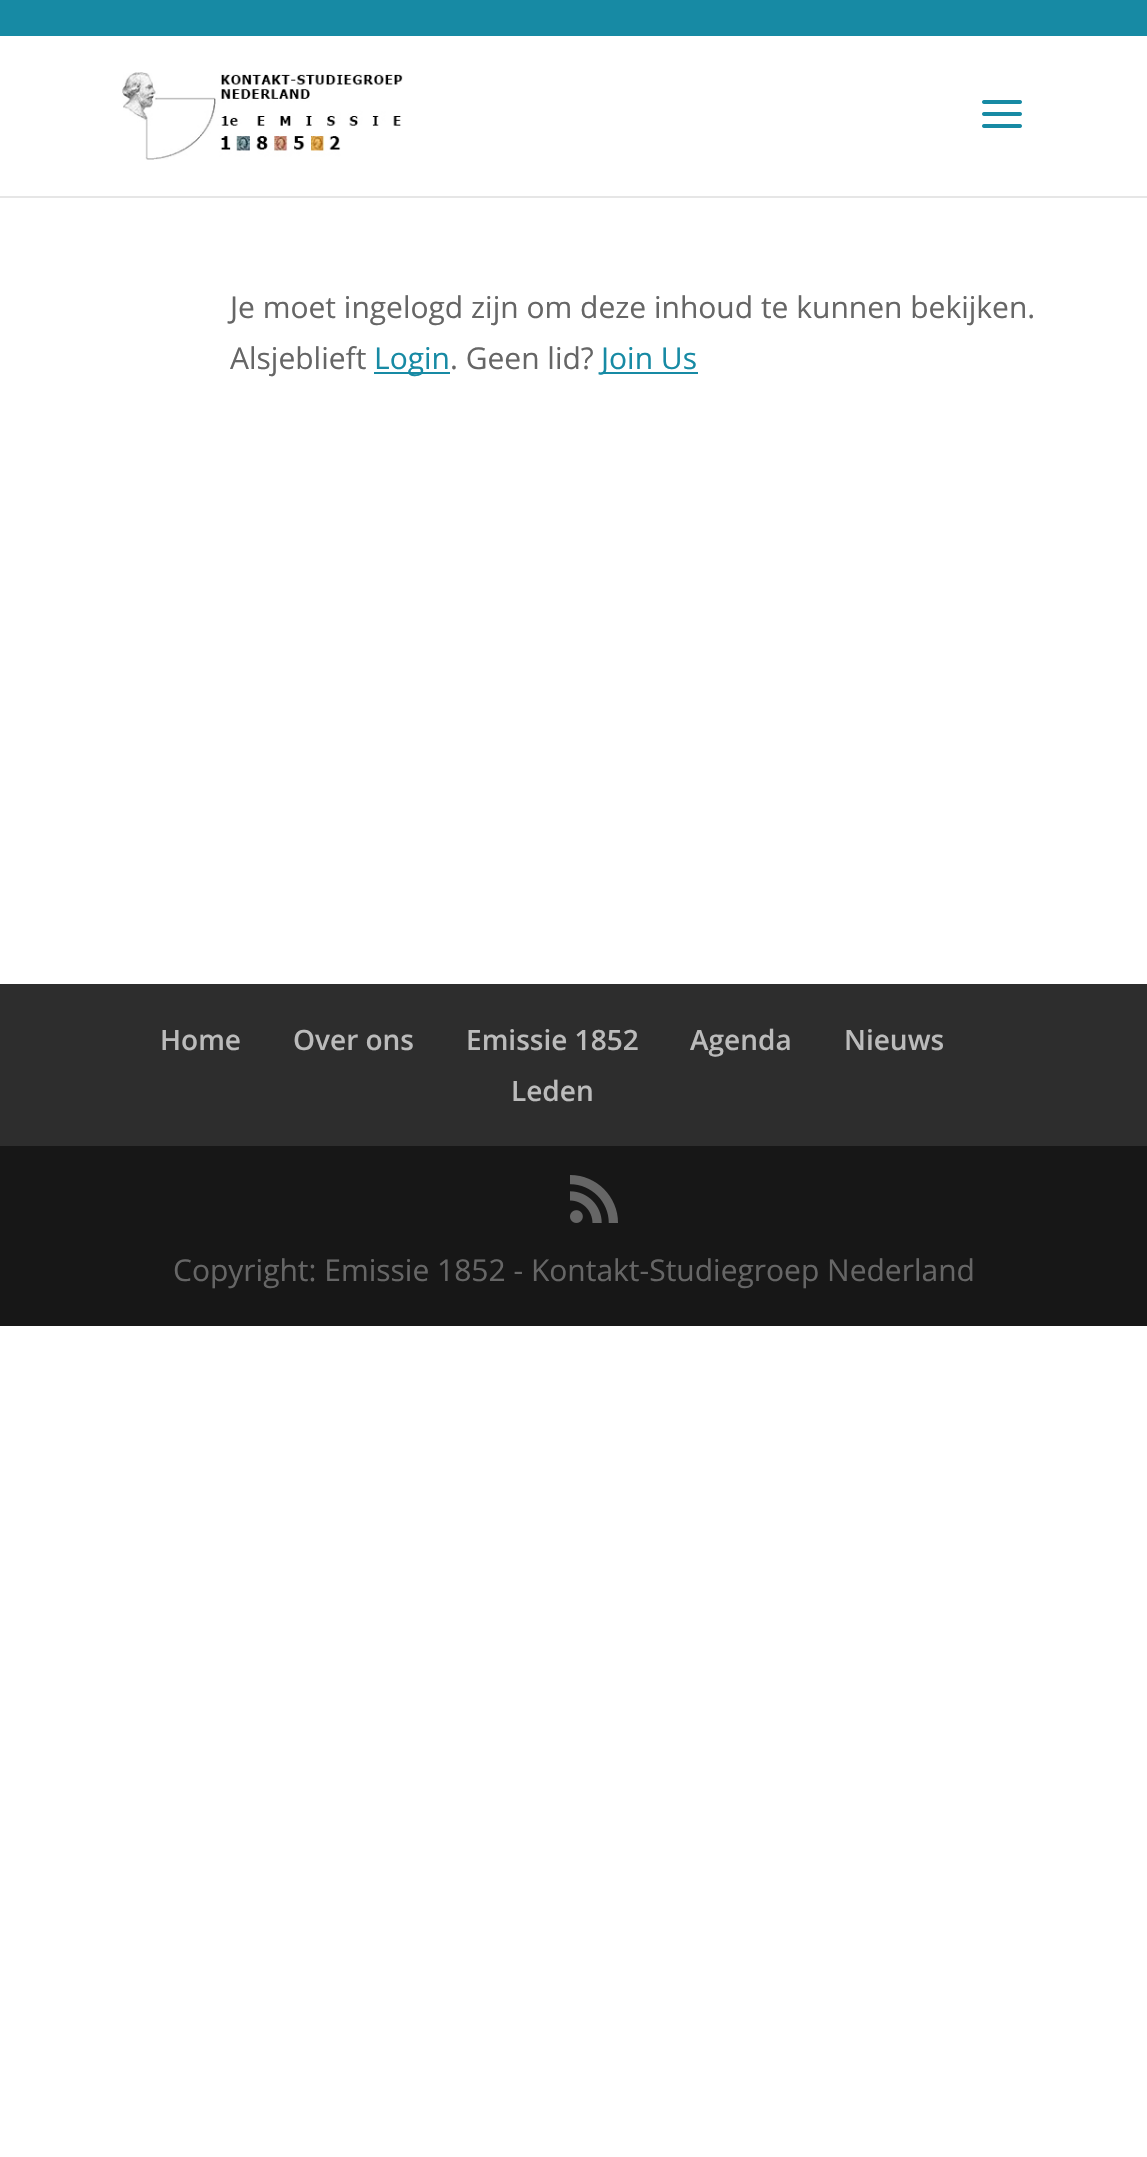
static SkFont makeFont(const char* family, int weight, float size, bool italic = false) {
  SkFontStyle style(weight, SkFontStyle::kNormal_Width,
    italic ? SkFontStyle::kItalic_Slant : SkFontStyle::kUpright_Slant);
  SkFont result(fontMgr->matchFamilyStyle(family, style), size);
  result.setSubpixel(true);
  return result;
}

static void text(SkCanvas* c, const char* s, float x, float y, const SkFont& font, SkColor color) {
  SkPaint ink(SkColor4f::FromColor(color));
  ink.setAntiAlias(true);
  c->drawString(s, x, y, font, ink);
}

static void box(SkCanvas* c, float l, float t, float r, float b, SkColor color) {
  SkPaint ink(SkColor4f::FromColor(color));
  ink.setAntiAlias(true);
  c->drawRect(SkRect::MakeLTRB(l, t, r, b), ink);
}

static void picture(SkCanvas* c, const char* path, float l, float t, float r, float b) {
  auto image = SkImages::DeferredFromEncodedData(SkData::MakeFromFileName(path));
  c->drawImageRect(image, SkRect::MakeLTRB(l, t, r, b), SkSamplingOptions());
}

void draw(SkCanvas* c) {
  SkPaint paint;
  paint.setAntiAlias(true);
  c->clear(0xffffffff);
  box(c, 0, 0, 1147, 36, 0xff178aa4);
  box(c, 0, 196, 1147, 198, 0xffe6e6e6);
  picture(c, "img_01.png", 122, 72, 403, 160);
  picture(c, "img_02.png", 982, 100, 1022, 128);
  SkFont face1 = makeFont("Open Sans", 400, 30);
  text(c, "Je moet ingelogd zijn om deze inhoud te kunnen bekijken.", 230, 318, face1, 0xff666666);
  text(c, "Alsjeblieft", 230, 369, face1, 0xff666666);
  box(c, 374, 372, 450, 374, 0xff178aa4);
  text(c, "Login", 374, 369, face1, 0xff178aa4);
  text(c, ". Geen lid?", 450, 369, face1, 0xff666666);
  box(c, 602, 372, 698, 374, 0xff178aa4);
  text(c, "Join Us", 601, 369, face1, 0xff178aa4);
  box(c, 0, 984, 1147, 1146, 0xff2d2d2d);
  SkFont face2 = makeFont("Open Sans", 600, 28);
  text(c, "Home", 160, 1050, face2, 0xffbbbbbb);
  text(c, "Over ons", 293, 1050, face2, 0xffbbbbbb);
  text(c, "Emissie 1852", 466, 1050, face2, 0xffbbbbbb);
  text(c, "Agenda", 690, 1050, face2, 0xffbbbbbb);
  text(c, "Nieuws", 844, 1050, face2, 0xffbbbbbb);
  text(c, "Leden", 511, 1101, face2, 0xffbbbbbb);
  box(c, 0, 1146, 1147, 1326, 0xff171717);
  picture(c, "img_03.png", 570, 1175, 618, 1223);
  text(c, "Copyright: Emissie 1852 - Kontakt-Studiegroep Nederland", 173, 1281, face1, 0xff666666);
}
